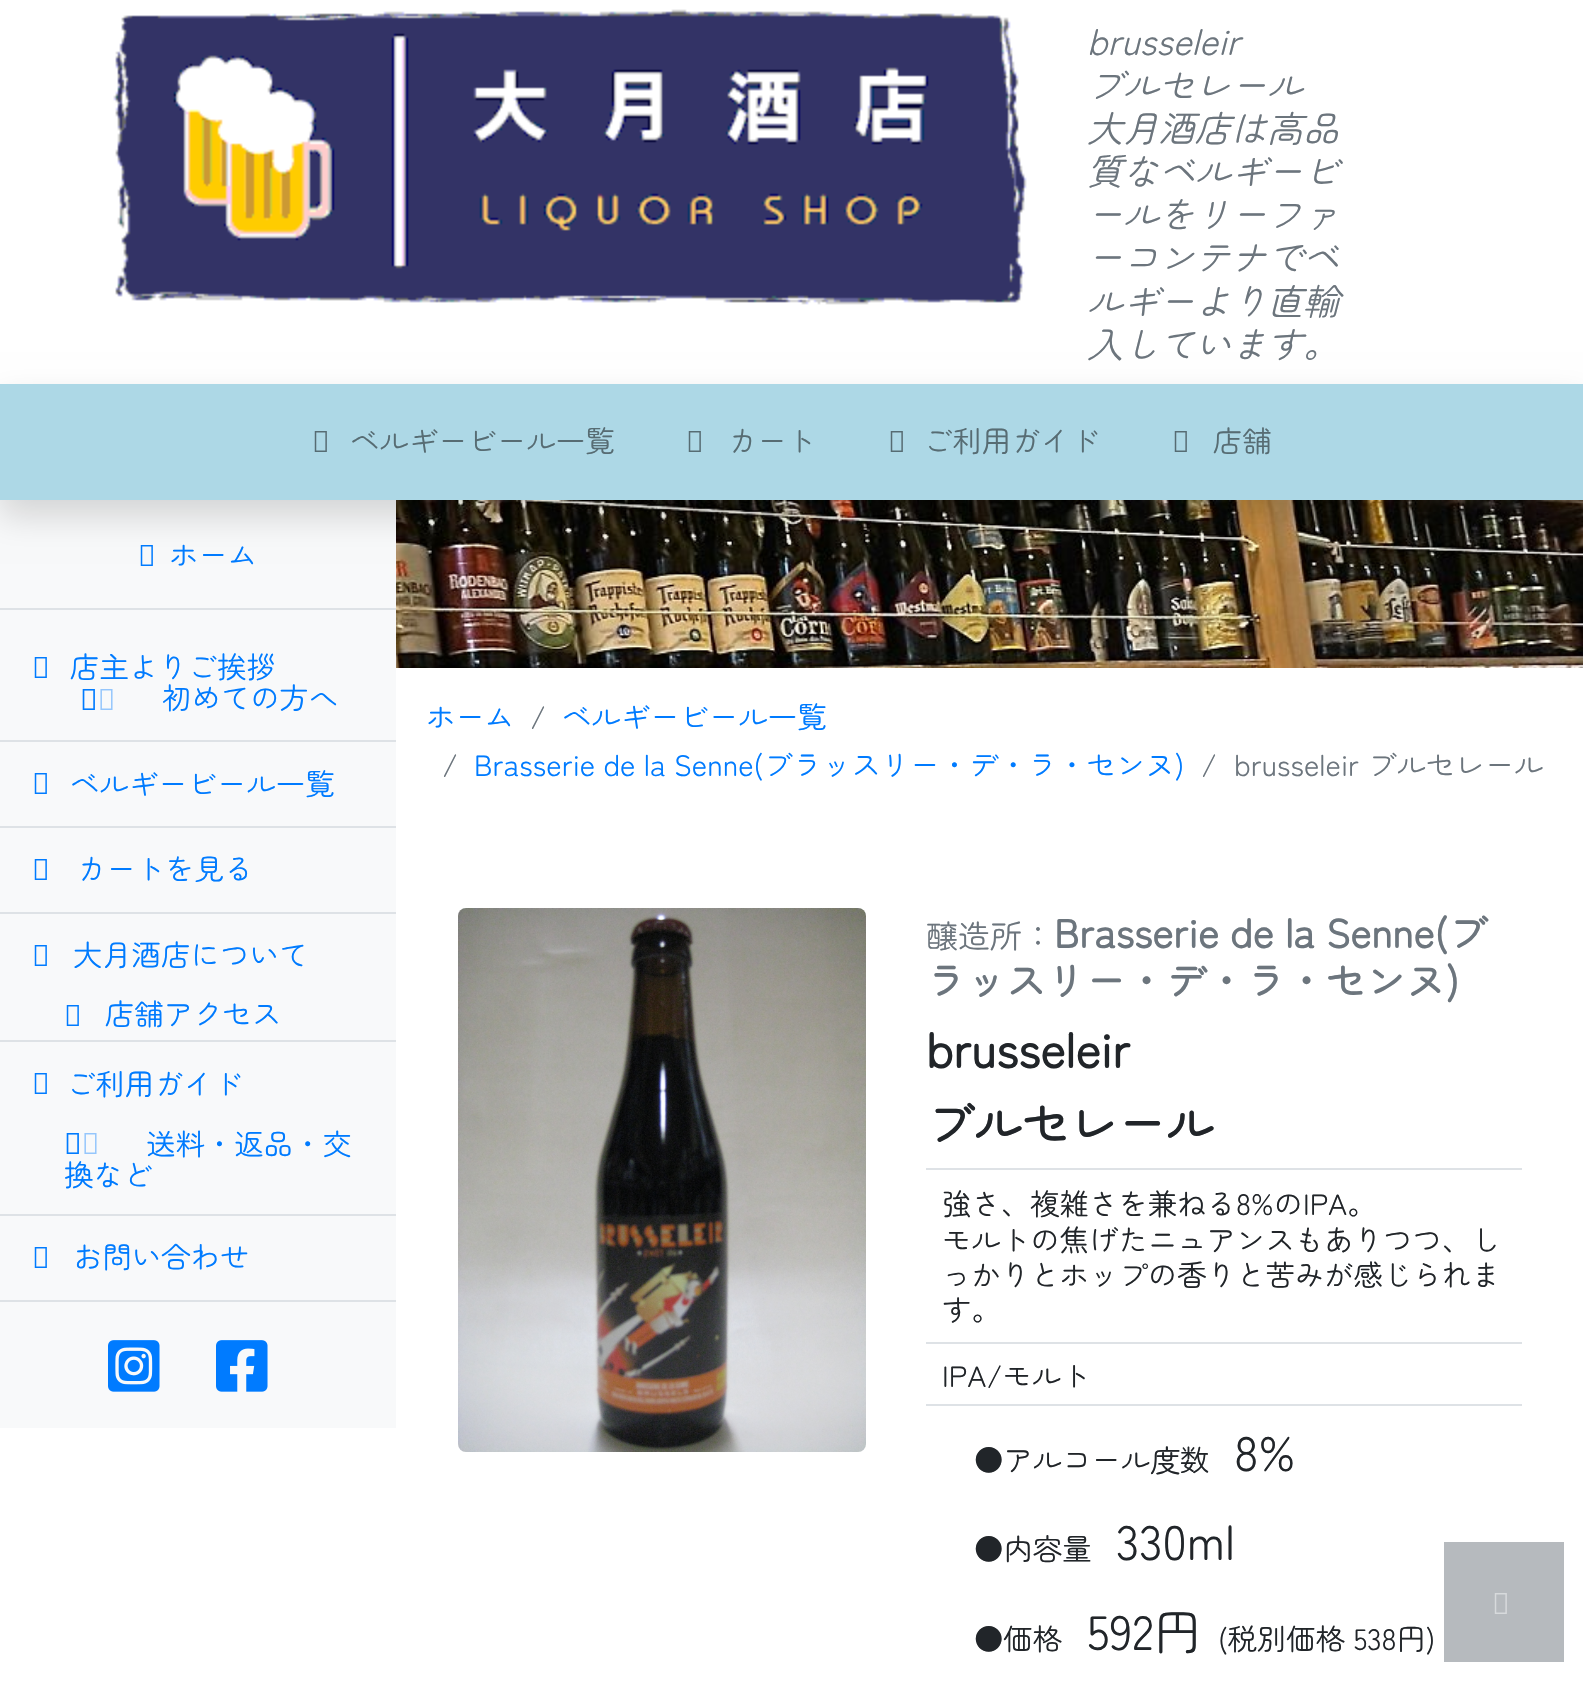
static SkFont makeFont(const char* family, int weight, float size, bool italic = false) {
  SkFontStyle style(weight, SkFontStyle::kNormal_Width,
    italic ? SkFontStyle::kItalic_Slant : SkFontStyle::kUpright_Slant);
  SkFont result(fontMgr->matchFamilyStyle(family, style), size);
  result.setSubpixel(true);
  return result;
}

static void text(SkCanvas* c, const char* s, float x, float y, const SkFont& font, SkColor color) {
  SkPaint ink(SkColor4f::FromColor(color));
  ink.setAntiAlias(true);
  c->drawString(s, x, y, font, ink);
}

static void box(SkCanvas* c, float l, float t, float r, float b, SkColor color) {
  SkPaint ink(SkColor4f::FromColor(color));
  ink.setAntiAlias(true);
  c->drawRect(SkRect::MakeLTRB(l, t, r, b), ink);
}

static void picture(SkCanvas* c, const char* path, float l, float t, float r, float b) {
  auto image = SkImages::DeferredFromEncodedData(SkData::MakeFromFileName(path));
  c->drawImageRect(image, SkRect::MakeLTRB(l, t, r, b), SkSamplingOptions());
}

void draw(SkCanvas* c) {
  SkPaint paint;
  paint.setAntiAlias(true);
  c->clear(0xffffffff);
  picture(c, "img_01.png", 113, 9, 1027, 305);
  SkFont face1 = makeFont("Zen Maru Gothic", 400, 36, true);
  text(c, "brusseleir", 1087, 55, face1, 0xff6c757d);
  text(c, "ブルセレール", 1087, 99, face1, 0xff6c757d);
  text(c, "大月酒店は高品", 1087, 142, face1, 0xff6c757d);
  text(c, "質なベルギービ", 1087, 185, face1, 0xff6c757d);
  text(c, "ールをリーファ", 1087, 228, face1, 0xff6c757d);
  text(c, "ーコンテナでベ", 1087, 271, face1, 0xff6c757d);
  text(c, "ルギーより直輸", 1087, 315, face1, 0xff6c757d);
  text(c, "入しています。", 1087, 358, face1, 0xff6c757d);
  box(c, 0, 500, 396, 1428, 0xfff8f9fa);
  picture(c, "img_03.png", 140, 545, 153, 566);
  picture(c, "img_07.png", 396, 500, 1583, 668);
  paint.setColor(0x26000000);
  paint.setMaskFilter(SkMaskFilter::MakeBlur(kNormal_SkBlurStyle, 16));
  c->drawRect(SkRect::MakeLTRB(0, 400, 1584, 516), paint);
  paint.setMaskFilter(nullptr);
  box(c, 0, 384, 1583, 500, 0xffadd8e6);
  picture(c, "img_02.png", 314, 431, 327, 452);
  SkFont face2 = makeFont("Zen Maru Gothic", 400, 29.4f);
  text(c, "ベルギービール一覧", 350, 452, face2, 0xff576c73);
  picture(c, "img_02.png", 688, 431, 701, 452);
  text(c, "カート", 728, 452, face2, 0xff576c73);
  picture(c, "img_02.png", 890, 431, 903, 452);
  text(c, "ご利用ガイド", 923, 452, face2, 0xff576c73);
  picture(c, "img_02.png", 1174, 431, 1187, 452);
  text(c, "店舗", 1213, 452, face2, 0xff576c73);
  box(c, 0, 608, 396, 610, 0xffdee2e6);
  text(c, "ホーム", 169, 566, face2, 0xff007bff);
  box(c, 0, 740, 396, 742, 0xffdee2e6);
  picture(c, "img_03.png", 34, 657, 47, 678);
  text(c, "店主よりご挨拶", 70, 678, face2, 0xff007bff);
  picture(c, "img_03.png", 82, 689, 95, 710);
  picture(c, "img_04.png", 82, 689, 113, 710);
  text(c, "初めての方へ", 162, 709, face2, 0xff007bff);
  box(c, 0, 826, 396, 828, 0xffdee2e6);
  picture(c, "img_03.png", 34, 773, 47, 794);
  text(c, "ベルギービール一覧", 70, 795, face2, 0xff007bff);
  box(c, 0, 912, 396, 914, 0xffdee2e6);
  picture(c, "img_03.png", 34, 859, 47, 880);
  text(c, "カートを見る", 77, 880, face2, 0xff007bff);
  box(c, 0, 1040, 396, 1042, 0xffdee2e6);
  picture(c, "img_03.png", 34, 945, 47, 966);
  text(c, "大月酒店について", 73, 966, face2, 0xff007bff);
  picture(c, "img_03.png", 66, 1005, 79, 1026);
  text(c, "店舗アクセス", 105, 1025, face2, 0xff007bff);
  box(c, 0, 1214, 396, 1216, 0xffdee2e6);
  picture(c, "img_03.png", 34, 1073, 47, 1094);
  text(c, "ご利用ガイド", 66, 1095, face2, 0xff007bff);
  picture(c, "img_03.png", 66, 1133, 79, 1154);
  picture(c, "img_04.png", 66, 1133, 97, 1154);
  text(c, "送料・返品・交", 146, 1155, face2, 0xff007bff);
  text(c, "換など", 64, 1186, face2, 0xff007bff);
  box(c, 0, 1300, 396, 1302, 0xffdee2e6);
  picture(c, "img_03.png", 34, 1247, 47, 1268);
  text(c, "お問い合わせ", 73, 1268, face2, 0xff007bff);
  picture(c, "img_05.png", 108, 1340, 160, 1392);
  picture(c, "img_06.png", 216, 1340, 268, 1392);
  text(c, "ホーム", 426, 728, face2, 0xff007bff);
  text(c, "/", 530, 728, face2, 0xff6c757d);
  text(c, "ベルギービール一覧", 562, 728, face2, 0xff007bff);
  text(c, "/", 442, 776, face2, 0xff6c757d);
  text(c, "Brasserie de la Senne(ブラッスリー・デ・ラ・センヌ)", 474, 776, face2, 0xff007bff);
  text(c, "/", 1201, 776, face2, 0xff6c757d);
  text(c, "brusseleir ブルセレール", 1234, 776, face2, 0xff6c757d);
  picture(c, "img_08.png", 458, 908, 866, 1452);
  SkFont face3 = makeFont("Zen Maru Gothic", 400, 32);
  text(c, "醸造所：", 926, 948, face3, 0xff6c757d);
  SkFont face4 = makeFont("Zen Maru Gothic", 700, 40);
  text(c, "Brasserie de la Senne(ブ", 1054, 948, face4, 0xff6c757d);
  text(c, "ラッスリー・デ・ラ・センヌ)", 926, 996, face4, 0xff6c757d);
  SkFont face5 = makeFont("Zen Maru Gothic", 700, 48);
  text(c, "brusseleir", 926, 1068, face5, 0xff212529);
  text(c, "ブルセレール", 926, 1142, face5, 0xff212529);
  box(c, 926, 1168, 1522, 1170, 0xffdee2e6);
  box(c, 926, 1342, 1522, 1344, 0xffdee2e6);
  text(c, "強さ、複雑さを兼ねる8%のIPA。", 942, 1215, face2, 0xff212529);
  text(c, "モルトの焦げたニュアンスもありつつ、し", 942, 1251, face2, 0xff212529);
  text(c, "っかりとホップの香りと苦みが感じられま", 942, 1286, face2, 0xff212529);
  text(c, "す。", 942, 1321, face2, 0xff212529);
  box(c, 926, 1404, 1522, 1406, 0xffdee2e6);
  text(c, "IPA/モルト", 942, 1387, face2, 0xff212529);
  text(c, "●アルコール度数", 974, 1471, face2, 0xff212529);
  SkFont face6 = makeFont("Zen Maru Gothic", 400, 48);
  text(c, "8%", 1234, 1471, face6, 0xff212529);
  text(c, "●内容量", 974, 1560, face2, 0xff212529);
  text(c, "330ml", 1116, 1560, face6, 0xff212529);
  text(c, "●価格", 974, 1650, face2, 0xff212529);
  text(c, "592円", 1087, 1650, face6, 0xff212529);
  text(c, "(税別価格 538円)", 1218, 1650, face2, 0xff212529);
  box(c, 1444, 1542, 1564, 1662, 0xffb6babe);
  picture(c, "img_09.png", 1494, 1593, 1507, 1614);
}
